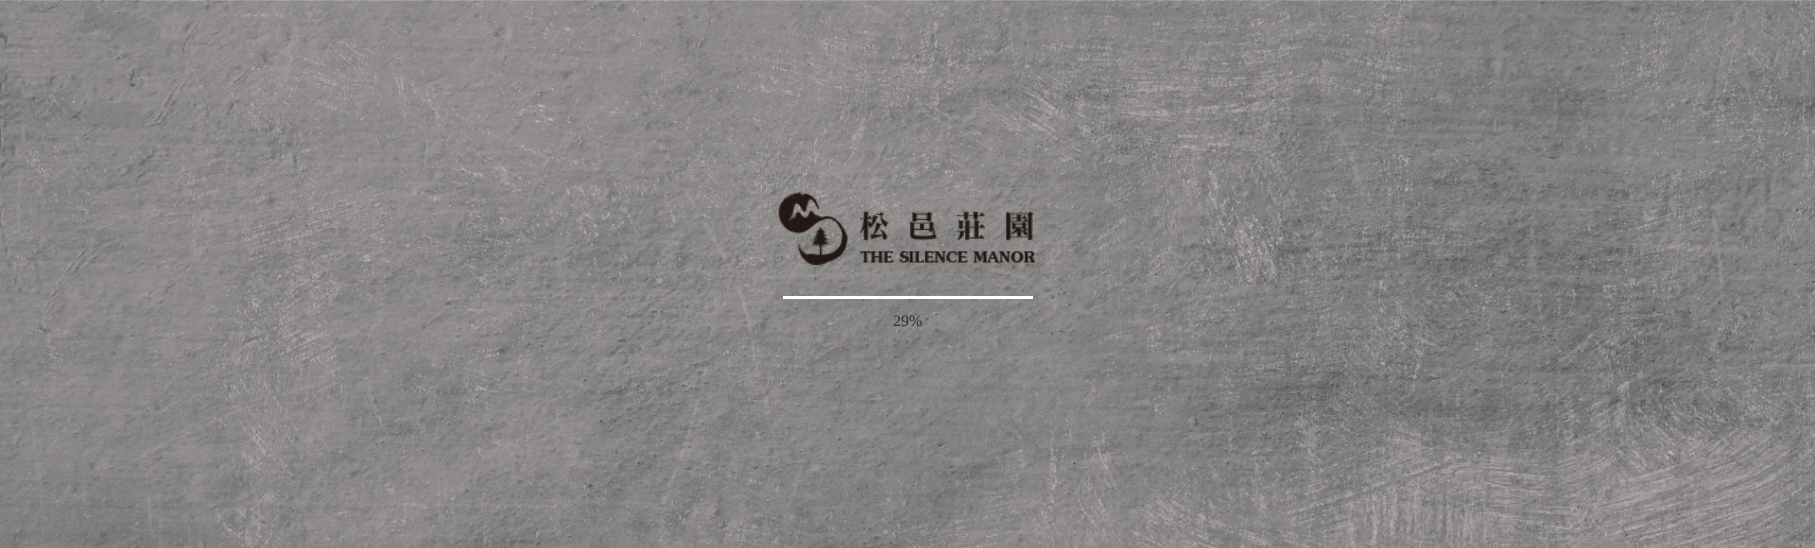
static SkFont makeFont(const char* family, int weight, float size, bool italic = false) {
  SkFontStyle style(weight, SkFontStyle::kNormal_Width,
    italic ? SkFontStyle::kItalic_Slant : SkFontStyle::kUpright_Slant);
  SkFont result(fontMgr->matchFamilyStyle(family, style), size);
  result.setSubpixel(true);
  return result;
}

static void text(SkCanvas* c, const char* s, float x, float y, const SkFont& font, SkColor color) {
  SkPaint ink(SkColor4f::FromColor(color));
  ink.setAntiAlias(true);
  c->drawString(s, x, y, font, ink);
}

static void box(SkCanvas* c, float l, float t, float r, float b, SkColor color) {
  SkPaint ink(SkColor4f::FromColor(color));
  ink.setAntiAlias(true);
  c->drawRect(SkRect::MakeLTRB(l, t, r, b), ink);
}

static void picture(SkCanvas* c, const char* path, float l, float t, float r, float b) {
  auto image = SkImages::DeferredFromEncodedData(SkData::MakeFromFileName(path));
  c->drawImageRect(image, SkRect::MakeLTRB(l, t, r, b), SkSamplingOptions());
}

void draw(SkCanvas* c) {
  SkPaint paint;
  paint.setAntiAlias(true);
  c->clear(0xffffffff);
  picture(c, "img_01.png", 0, 0, 1815, 548);
  picture(c, "img_02.png", 778, 192, 1036, 266);
  box(c, 783, 296, 1033, 299, 0xffffffff);
  SkFont face1 = makeFont("Liberation Serif", 400, 16);
  text(c, "29%", 893, 326, face1, 0xff333333);
}
